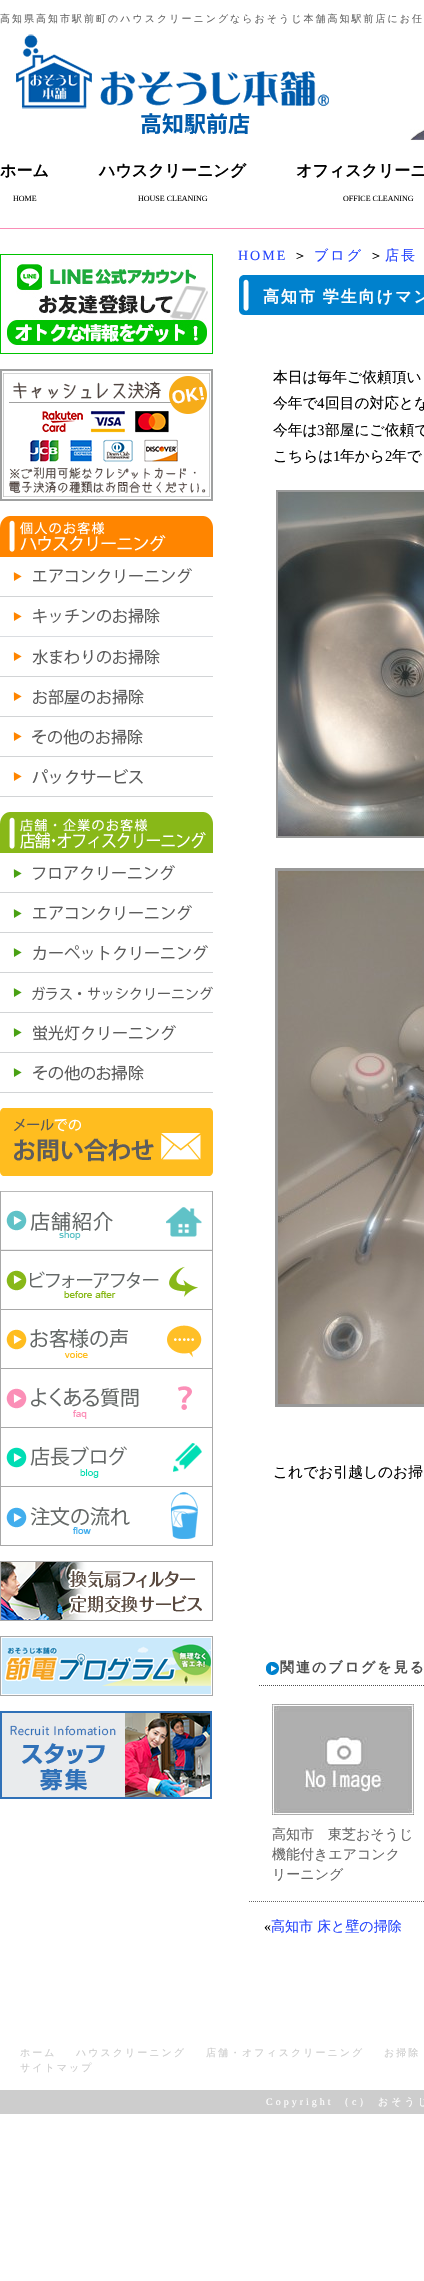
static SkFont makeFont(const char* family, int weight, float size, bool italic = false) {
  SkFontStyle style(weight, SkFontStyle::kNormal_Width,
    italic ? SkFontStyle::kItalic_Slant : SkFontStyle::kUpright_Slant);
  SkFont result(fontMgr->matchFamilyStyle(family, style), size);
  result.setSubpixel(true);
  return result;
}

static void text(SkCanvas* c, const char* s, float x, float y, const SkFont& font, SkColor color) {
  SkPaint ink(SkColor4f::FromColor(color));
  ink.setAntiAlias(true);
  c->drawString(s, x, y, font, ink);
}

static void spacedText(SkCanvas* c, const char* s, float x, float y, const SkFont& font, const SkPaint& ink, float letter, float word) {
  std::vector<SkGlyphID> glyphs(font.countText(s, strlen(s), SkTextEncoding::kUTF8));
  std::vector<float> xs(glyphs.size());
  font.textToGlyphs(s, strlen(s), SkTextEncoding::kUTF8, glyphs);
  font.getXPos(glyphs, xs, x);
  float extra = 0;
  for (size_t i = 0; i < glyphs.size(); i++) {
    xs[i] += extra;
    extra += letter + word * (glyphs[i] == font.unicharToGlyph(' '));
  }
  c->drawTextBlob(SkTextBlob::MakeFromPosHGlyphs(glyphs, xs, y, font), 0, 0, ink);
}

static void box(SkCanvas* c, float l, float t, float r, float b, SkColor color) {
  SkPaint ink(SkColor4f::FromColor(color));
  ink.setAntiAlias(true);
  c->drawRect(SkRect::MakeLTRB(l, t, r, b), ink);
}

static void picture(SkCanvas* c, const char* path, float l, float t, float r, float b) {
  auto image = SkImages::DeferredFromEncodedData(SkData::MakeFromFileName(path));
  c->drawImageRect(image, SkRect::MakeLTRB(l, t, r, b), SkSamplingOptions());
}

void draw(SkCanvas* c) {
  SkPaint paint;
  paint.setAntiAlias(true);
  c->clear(0xffffffff);
  SkFont face1 = makeFont("WenQuanYi Zen Hei", 500, 10);
  paint.setColor(0xff666666);
  spacedText(c, "高知県高知市駅前町のハウスクリーニングならおそうじ本舗高知駅前店にお任", 0, 22, face1, paint, 2, 0);
  picture(c, "img_01.png", 410, 129, 424, 141);
  picture(c, "img_02.png", 16, 34, 329, 109);
  SkFont face2 = makeFont("Noto Sans JP", 700, 22);
  text(c, "高知駅前店", 140, 132, face2, 0xff005aaa);
  box(c, 0, 228, 424, 229, 0xfffa8eb7);
  SkFont face3 = makeFont("WenQuanYi Zen Hei", 700, 16);
  text(c, "ホーム", 0, 176, face3, 0xff000000);
  SkFont face4 = makeFont("Liberation Serif", 400, 8);
  text(c, "HOME", 13, 201, face4, 0xff000000);
  text(c, "ハウスクリーニング", 99, 176, face3, 0xff000000);
  text(c, "HOUSE CLEANING", 138, 201, face4, 0xff000000);
  text(c, "オフィスクリーニ", 296, 176, face3, 0xff000000);
  text(c, "OFFICE CLEANING", 343, 201, face4, 0xff000000);
  picture(c, "img_03.png", 0, 254, 213, 354);
  picture(c, "img_04.png", 0, 369, 213, 501);
  picture(c, "img_05.png", 0, 516, 213, 557);
  picture(c, "img_06.png", 0, 568, 213, 597);
  picture(c, "img_07.png", 0, 608, 213, 637);
  picture(c, "img_08.png", 0, 649, 213, 677);
  picture(c, "img_09.png", 0, 689, 213, 717);
  picture(c, "img_10.png", 0, 729, 213, 757);
  picture(c, "img_11.png", 0, 769, 213, 797);
  picture(c, "img_12.png", 0, 812, 213, 853);
  picture(c, "img_13.png", 0, 865, 213, 893);
  picture(c, "img_14.png", 0, 905, 213, 933);
  picture(c, "img_15.png", 0, 945, 213, 973);
  picture(c, "img_16.png", 0, 986, 213, 1013);
  picture(c, "img_17.png", 0, 1025, 213, 1053);
  picture(c, "img_18.png", 0, 1065, 213, 1093);
  picture(c, "img_19.png", 0, 1108, 213, 1176);
  picture(c, "img_20.png", 0, 1191, 213, 1250);
  picture(c, "img_21.png", 0, 1250, 213, 1309);
  picture(c, "img_22.png", 0, 1309, 213, 1368);
  picture(c, "img_23.png", 0, 1368, 213, 1427);
  picture(c, "img_24.png", 0, 1427, 213, 1486);
  picture(c, "img_25.png", 0, 1486, 213, 1546);
  picture(c, "img_26.png", 0, 1561, 213, 1621);
  picture(c, "img_27.png", 0, 1636, 213, 1696);
  picture(c, "img_28.png", 0, 1711, 212, 1799);
  SkFont face5 = makeFont("Liberation Serif", 400, 14);
  paint.setColor(0xff2645fd);
  spacedText(c, "HOME", 238, 260, face5, paint, 2, 0);
  SkFont face6 = makeFont("WenQuanYi Zen Hei", 500, 14);
  paint.setColor(0xff000000);
  spacedText(c, "＞", 293, 260, face6, paint, 2, 0);
  paint.setColor(0xff2645fd);
  spacedText(c, "ブログ", 314, 260, face6, paint, 2, 0);
  paint.setColor(0xff000000);
  spacedText(c, "＞", 369, 260, face6, paint, 2, 0);
  paint.setColor(0xff2645fd);
  spacedText(c, "店長", 385, 260, face6, paint, 2, 0);
  picture(c, "img_29.png", 239, 275, 424, 315);
  paint.setColor(0xffffffff);
  spacedText(c, "高知市 学生向けマン", 263, 302, face3, paint, 2, -1);
  SkFont face7 = makeFont("WenQuanYi Zen Hei", 500, 14.75f);
  text(c, "本日は毎年ご依頼頂い", 273, 382, face7, 0xff000000);
  text(c, "今年で", 273, 408, face7, 0xff000000);
  SkFont face8 = makeFont("Liberation Serif", 400, 14.75f);
  text(c, "4", 317, 408, face8, 0xff000000);
  text(c, "回目の対応とな", 325, 408, face7, 0xff000000);
  text(c, "今年は", 273, 435, face7, 0xff000000);
  text(c, "3", 317, 435, face8, 0xff000000);
  text(c, "部屋にご依頼で", 325, 435, face7, 0xff000000);
  text(c, "こちらは", 273, 461, face7, 0xff000000);
  text(c, "1", 333, 461, face8, 0xff000000);
  text(c, "年から", 340, 461, face7, 0xff000000);
  text(c, "2", 385, 461, face8, 0xff000000);
  text(c, "年で", 392, 461, face7, 0xff000000);
  paint.setStyle(SkPaint::kStroke_Style);
  paint.setStrokeWidth(2);
  paint.setColor(0xff999999);
  c->drawRect(SkRect::MakeLTRB(277, 491, 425, 837), paint);
  picture(c, "img_30.png", 278, 492, 424, 836);
  paint.setStrokeWidth(3);
  c->drawRect(SkRect::MakeLTRB(276.5f, 869.5f, 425.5f, 1405.5f), paint);
  picture(c, "img_31.png", 278, 871, 424, 1404);
  text(c, "これでお引越しのお掃", 273, 1477, face7, 0xff000000);
  picture(c, "img_32.png", 259, 1662, 424, 1686);
  SkFont face9 = makeFont("WenQuanYi Zen Hei", 700, 14);
  paint.setStyle(SkPaint::kFill_Style);
  paint.setColor(0xff4f4f4f);
  spacedText(c, "関連のブログを見る", 280, 1672, face9, paint, 2, 0);
  picture(c, "img_33.png", 272, 1704, 414, 1815);
  text(c, "高知市　東芝おそうじ", 272, 1839, face6, 0xff666666);
  text(c, "機能付きエアコンク", 272, 1859, face6, 0xff666666);
  text(c, "リーニング", 272, 1879, face6, 0xff666666);
  paint.setStyle(SkPaint::kStroke_Style);
  paint.setStrokeWidth(1);
  paint.setColor(0xff666666);
  paint.setPathEffect(SkDashPathEffect::Make({{1, 1}}, 0));
  c->drawPath(SkPathBuilder().moveTo(249, 1901.5f).lineTo(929, 1901.5f).detach(), paint);
  paint.setPathEffect(nullptr);
  text(c, "«", 264, 1931, face5, 0xff000000);
  text(c, "高知市", 271, 1931, face6, 0xff2645fd);
  text(c, "床と壁の掃除", 317, 1931, face6, 0xff2645fd);
  paint.setStyle(SkPaint::kFill_Style);
  paint.setColor(0xffcdcdcd);
  spacedText(c, "ホーム", 20, 2056, face1, paint, 2, 0);
  spacedText(c, "ハウスクリーニング", 76, 2056, face1, paint, 2, 0);
  spacedText(c, "店舗・オフィスクリーニング", 206, 2056, face1, paint, 2, 0);
  spacedText(c, "お掃除", 384, 2056, face1, paint, 2, 0);
  spacedText(c, "サイトマップ", 20, 2071, face1, paint, 2, 0);
  box(c, 0, 2090, 424, 2114, 0xffcdcdcd);
  SkFont face10 = makeFont("Liberation Serif", 400, 10);
  paint.setColor(0xffffffff);
  spacedText(c, "Copyright", 266, 2105, face10, paint, 3, 0);
  spacedText(c, "（", 339, 2105, face1, paint, 3, 0);
  spacedText(c, "c", 352, 2105, face10, paint, 3, 0);
  spacedText(c, "）", 359, 2105, face1, paint, 3, 0);
  spacedText(c, "おそうじ", 378, 2105, face1, paint, 3, 0);
}
